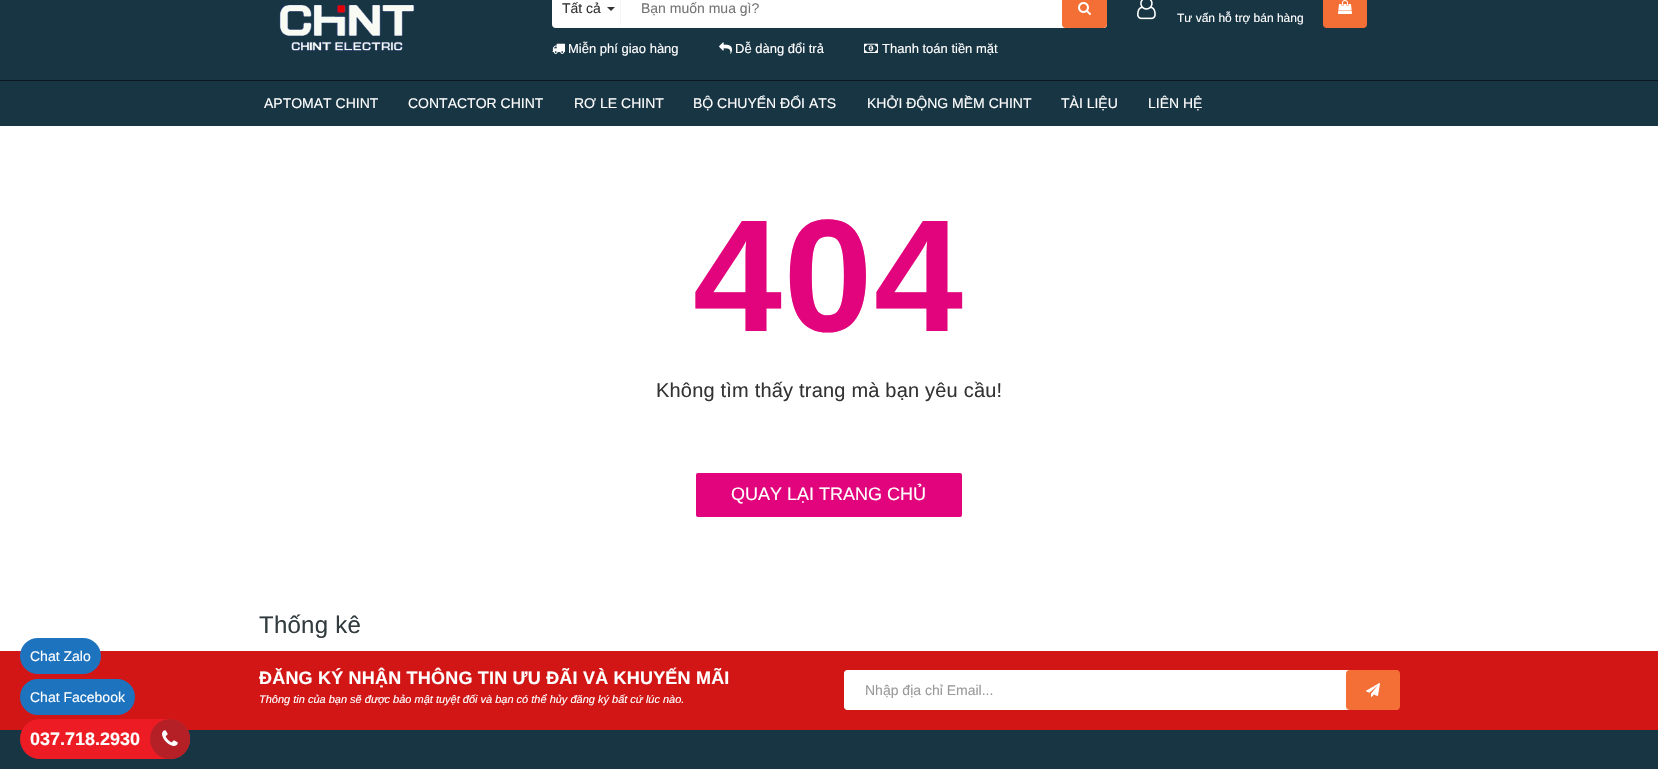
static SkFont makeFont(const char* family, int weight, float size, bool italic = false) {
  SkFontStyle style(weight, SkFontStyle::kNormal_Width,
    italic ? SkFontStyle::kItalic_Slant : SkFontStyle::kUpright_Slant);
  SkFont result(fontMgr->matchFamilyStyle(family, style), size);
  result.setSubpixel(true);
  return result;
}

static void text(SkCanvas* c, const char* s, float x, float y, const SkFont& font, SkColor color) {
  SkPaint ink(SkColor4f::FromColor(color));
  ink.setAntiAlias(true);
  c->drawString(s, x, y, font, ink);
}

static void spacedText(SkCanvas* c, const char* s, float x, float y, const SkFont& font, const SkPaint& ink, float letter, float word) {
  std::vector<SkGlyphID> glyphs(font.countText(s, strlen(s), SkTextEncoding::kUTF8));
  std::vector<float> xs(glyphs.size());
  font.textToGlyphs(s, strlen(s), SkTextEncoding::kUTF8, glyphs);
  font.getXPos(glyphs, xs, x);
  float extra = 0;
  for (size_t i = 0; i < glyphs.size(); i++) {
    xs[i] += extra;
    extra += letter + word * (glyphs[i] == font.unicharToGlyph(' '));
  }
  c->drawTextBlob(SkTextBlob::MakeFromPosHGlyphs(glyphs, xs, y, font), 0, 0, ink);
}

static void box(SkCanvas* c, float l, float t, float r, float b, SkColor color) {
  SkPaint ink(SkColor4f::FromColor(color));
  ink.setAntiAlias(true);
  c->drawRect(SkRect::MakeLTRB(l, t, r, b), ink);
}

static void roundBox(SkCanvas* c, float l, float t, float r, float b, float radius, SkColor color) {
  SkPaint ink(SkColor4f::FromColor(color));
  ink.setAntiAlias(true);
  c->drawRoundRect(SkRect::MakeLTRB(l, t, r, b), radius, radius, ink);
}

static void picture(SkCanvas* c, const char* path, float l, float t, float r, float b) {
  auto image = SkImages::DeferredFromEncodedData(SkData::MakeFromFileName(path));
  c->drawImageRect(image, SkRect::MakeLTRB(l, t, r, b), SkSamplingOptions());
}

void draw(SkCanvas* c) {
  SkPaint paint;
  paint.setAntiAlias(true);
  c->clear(0xffffffff);
  box(c, 0, 0, 1658, 126, 0xff183544);
  box(c, 0, 80, 1658, 81, 0xff0b181e);
  picture(c, "img_01.png", 279, 5, 415, 51);
  roundBox(c, 552, -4, 1107, 28, 4, 0xffffffff);
  box(c, 620, 0, 621, 26, 0xfff6f6f6);
  SkFont face1 = makeFont("Liberation Sans", 400, 14);
  text(c, "Tất cả", 562, 13, face1, 0xff333333);
  paint.setColor(0xff333333);
  c->drawPath(SkPathBuilder().moveTo(607, 7).lineTo(615, 7).lineTo(611, 11).close().detach(), paint);
  roundBox(c, 621, -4, 1107, 28, 4, 0xffffffff);
  text(c, "Bạn muốn mua gì?", 641, 13, face1, 0xff757575);
  roundBox(c, 1062, -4, 1107, 28, 4, 0xfff36f36);
  picture(c, "img_02.png", 1078, 2, 1091, 15);
  picture(c, "img_03.png", 552, 43, 565, 54);
  SkFont face2 = makeFont("Liberation Sans", 400, 13);
  text(c, "Miễn phí giao hàng", 568, 53, face2, 0xffffffff);
  picture(c, "img_04.png", 719, 42, 732, 54);
  text(c, "Dễ dàng đổi trả", 735, 53, face2, 0xffffffff);
  picture(c, "img_05.png", 864, 43, 878, 53);
  text(c, "Thanh toán tiền mặt", 882, 53, face2, 0xffffffff);
  picture(c, "img_06.png", 1137, 0, 1156, 20);
  SkFont face3 = makeFont("Liberation Sans", 400, 12);
  text(c, "Tư vấn hỗ trợ bán hàng", 1177, 22, face3, 0xffffffff);
  roundBox(c, 1323, -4, 1367, 28, 4, 0xfff36f36);
  picture(c, "img_07.png", 1338, 0, 1352, 14);
  text(c, "APTOMAT CHINT", 264, 108, face1, 0xffffffff);
  text(c, "CONTACTOR CHINT", 408, 108, face1, 0xffffffff);
  text(c, "RƠ LE CHINT", 574, 108, face1, 0xffffffff);
  text(c, "BỘ CHUYỂN ĐỔI ATS", 693, 108, face1, 0xffffffff);
  text(c, "KHỞI ĐỘNG MỀM CHINT", 867, 108, face1, 0xffffffff);
  text(c, "TÀI LIỆU", 1061, 108, face1, 0xffffffff);
  text(c, "LIÊN HỆ", 1148, 108, face1, 0xffffffff);
  SkFont face4 = makeFont("Liberation Sans", 700, 160);
  paint.setColor(0xffe1047d);
  spacedText(c, "404", 693, 331, face4, paint, 1.5f, 0);
  SkFont face5 = makeFont("Liberation Sans", 400, 20);
  paint.setColor(0xff333333);
  spacedText(c, "Không tìm thấy trang mà bạn yêu cầu!", 656, 397, face5, paint, 0.2f, 0);
  roundBox(c, 696, 473, 962, 517, 2, 0xffe1047d);
  SkFont face6 = makeFont("Liberation Sans", 400, 18);
  text(c, "QUAY LẠI TRANG CHỦ", 731, 500, face6, 0xffffffff);
  box(c, 0, 651, 1658, 730, 0xffd21515);
  roundBox(c, 20, 638, 101, 674, 18, 0xff1e73be);
  text(c, "Chat Zalo", 30, 661, face1, 0xffffffff);
  SkFont face7 = makeFont("Liberation Sans", 400, 24);
  paint.setColor(0xff323c3f);
  spacedText(c, "Thống kê", 259, 633, face7, paint, 0.25f, 0);
  SkFont face8 = makeFont("Liberation Sans", 700, 18);
  paint.setColor(0xffffffff);
  spacedText(c, "ĐĂNG KÝ NHẬN THÔNG TIN ƯU ĐÃI VÀ KHUYẾN MÃI", 259, 684, face8, paint, 0.2f, 0);
  SkFont face9 = makeFont("Liberation Sans", 400, 11, true);
  text(c, "Thông tin của bạn sẽ được bảo mật tuyệt đối và bạn có thể hủy đăng ký bất cứ lúc nào.", 259, 703, face9, 0xffffffff);
  roundBox(c, 844, 670, 1399, 710, 4, 0xffffffff);
  c->drawRoundRect(SkRect::MakeLTRB(844.5f, 670.5f, 1345.5f, 709.5f), 3.5f, 3.5f, paint);
  paint.setStyle(SkPaint::kStroke_Style);
  paint.setStrokeWidth(1);
  c->drawRoundRect(SkRect::MakeLTRB(844.5f, 670.5f, 1345.5f, 709.5f), 3.5f, 3.5f, paint);
  text(c, "Nhập địa chỉ Email...", 865, 695, face1, 0xff999999);
  roundBox(c, 1346, 670, 1400, 710, 4, 0xfff36f36);
  picture(c, "img_08.png", 1366, 683, 1380, 697);
  box(c, 0, 730, 1658, 769, 0xff183544);
  roundBox(c, 20, 679, 135, 715, 18, 0xff1e73be);
  text(c, "Chat Facebook", 30, 702, face1, 0xffffffff);
  roundBox(c, 20, 719, 190, 759, 20, 0xffed1c24);
  text(c, "037.718.2930", 30, 745, face8, 0xffffffff);
  paint.setStyle(SkPaint::kFill_Style);
  paint.setColor(0xffb52026);
  c->drawCircle(170, 739, 20, paint);
  picture(c, "img_09.png", 162, 730, 178, 746);
}
